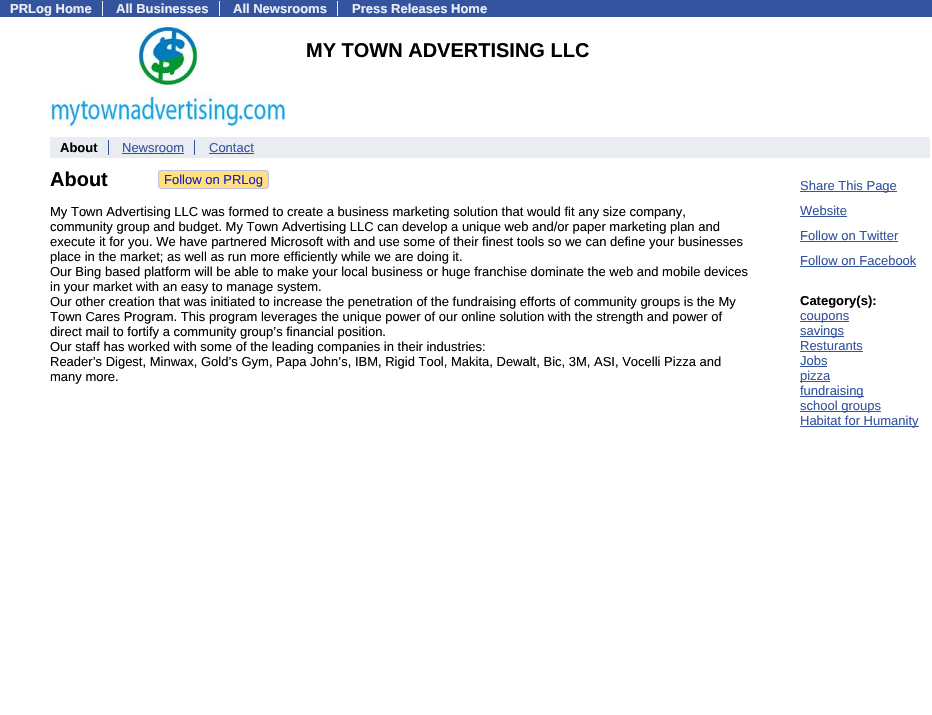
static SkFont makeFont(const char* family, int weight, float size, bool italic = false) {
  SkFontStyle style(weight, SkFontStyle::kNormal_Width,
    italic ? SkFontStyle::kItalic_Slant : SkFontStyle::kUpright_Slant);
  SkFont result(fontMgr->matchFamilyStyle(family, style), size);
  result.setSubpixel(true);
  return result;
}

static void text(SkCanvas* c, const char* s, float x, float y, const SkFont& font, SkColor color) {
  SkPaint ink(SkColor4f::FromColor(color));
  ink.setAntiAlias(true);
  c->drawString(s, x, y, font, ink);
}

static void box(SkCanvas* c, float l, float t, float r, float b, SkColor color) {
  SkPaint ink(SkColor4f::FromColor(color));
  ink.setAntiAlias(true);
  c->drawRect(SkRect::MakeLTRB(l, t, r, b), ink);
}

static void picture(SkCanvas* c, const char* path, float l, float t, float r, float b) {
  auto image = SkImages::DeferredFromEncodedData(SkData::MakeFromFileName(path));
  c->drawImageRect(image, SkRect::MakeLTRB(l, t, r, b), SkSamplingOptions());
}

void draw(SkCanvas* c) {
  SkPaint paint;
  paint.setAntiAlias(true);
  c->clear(0xffffffff);
  box(c, 0, 0, 932, 17, 0xff3454a0);
  box(c, 102, 1, 103, 16, 0xffe9edf2);
  SkFont face1 = makeFont("Liberation Sans", 700, 13);
  text(c, "PRLog Home", 10, 13, face1, 0xffe9edf2);
  box(c, 219, 1, 220, 16, 0xffe9edf2);
  text(c, "All Businesses", 116, 13, face1, 0xffe9edf2);
  box(c, 337, 1, 338, 16, 0xffe9edf2);
  text(c, "All Newsrooms", 233, 13, face1, 0xffe9edf2);
  text(c, "Press Releases Home", 352, 13, face1, 0xffe9edf2);
  picture(c, "img_01.png", 50, 27, 286, 127);
  SkFont face2 = makeFont("Liberation Sans", 700, 20);
  text(c, "MY TOWN ADVERTISING LLC", 306, 57, face2, 0xff000000);
  box(c, 50, 137, 930, 158, 0xffe9edf2);
  box(c, 108, 140, 109, 155, 0xff3454a0);
  text(c, "About", 60, 152, face1, 0xff000000);
  box(c, 194, 140, 195, 155, 0xff3454a0);
  SkFont face3 = makeFont("Liberation Sans", 400, 13);
  text(c, "Newsroom", 122, 152, face3, 0xff3454a0);
  box(c, 122, 153, 184, 154, 0xff3454a0);
  text(c, "Contact", 209, 152, face3, 0xff3454a0);
  box(c, 209, 153, 254, 154, 0xff3454a0);
  text(c, "About", 50, 186, face2, 0xff000000);
  paint.setColor(0xffffe080);
  c->drawRoundRect(SkRect::MakeLTRB(158.5f, 170.5f, 268.5f, 188.5f), 2.5f, 2.5f, paint);
  paint.setStyle(SkPaint::kStroke_Style);
  paint.setStrokeWidth(1);
  paint.setColor(0xffc0c0e0);
  c->drawRoundRect(SkRect::MakeLTRB(158.5f, 170.5f, 268.5f, 188.5f), 2.5f, 2.5f, paint);
  text(c, "Follow on PRLog", 164, 184, face3, 0xff2020c0);
  text(c, "My Town Advertising LLC was formed to create a business marketing solution that would fit any size company,", 50, 216, face3, 0xff000000);
  text(c, "community group and budget. My Town Advertising LLC can develop a unique web and/or paper marketing plan and", 50, 231, face3, 0xff000000);
  text(c, "execute it for you. We have partnered Microsoft with and use some of their finest tools so we can define your businesses", 50, 246, face3, 0xff000000);
  text(c, "place in the market; as well as run more efficiently while we are doing it.", 50, 261, face3, 0xff000000);
  text(c, "Our Bing based platform will be able to make your local business or huge franchise dominate the web and mobile devices", 50, 276, face3, 0xff000000);
  text(c, "in your market with an easy to manage system.", 50, 291, face3, 0xff000000);
  text(c, "Our other creation that was initiated to increase the penetration of the fundraising efforts of community groups is the My", 50, 306, face3, 0xff000000);
  text(c, "Town Cares Program. This program leverages the unique power of our online solution with the strength and power of", 50, 321, face3, 0xff000000);
  text(c, "direct mail to fortify a community group’s financial position.", 50, 336, face3, 0xff000000);
  text(c, "Our staff has worked with some of the leading companies in their industries:", 50, 351, face3, 0xff000000);
  text(c, "Reader’s Digest, Minwax, Gold’s Gym, Papa John’s, IBM, Rigid Tool, Makita, Dewalt, Bic, 3M, ASI, Vocelli Pizza and", 50, 366, face3, 0xff000000);
  text(c, "many more.", 50, 381, face3, 0xff000000);
  box(c, 800, 191, 897, 192, 0xff3454a0);
  text(c, "Share This Page", 800, 190, face3, 0xff3454a0);
  text(c, "Website", 800, 215, face3, 0xff3454a0);
  box(c, 800, 216, 847, 217, 0xff3454a0);
  text(c, "Follow on Twitter", 800, 240, face3, 0xff3454a0);
  box(c, 800, 241, 898, 242, 0xff3454a0);
  text(c, "Follow on Facebook", 800, 265, face3, 0xff3454a0);
  box(c, 800, 266, 916, 267, 0xff3454a0);
  text(c, "Category(s):", 800, 305, face1, 0xff000000);
  box(c, 800, 321, 849, 322, 0xff3454a0);
  text(c, "coupons", 800, 320, face3, 0xff3454a0);
  box(c, 800, 336, 844, 337, 0xff3454a0);
  text(c, "savings", 800, 335, face3, 0xff3454a0);
  text(c, "Resturants", 800, 350, face3, 0xff3454a0);
  box(c, 800, 351, 863, 352, 0xff3454a0);
  text(c, "Jobs", 800, 365, face3, 0xff3454a0);
  box(c, 800, 366, 827, 367, 0xff3454a0);
  box(c, 800, 381, 830, 382, 0xff3454a0);
  text(c, "pizza", 800, 380, face3, 0xff3454a0);
  box(c, 800, 396, 864, 397, 0xff3454a0);
  text(c, "fundraising", 800, 395, face3, 0xff3454a0);
  box(c, 800, 411, 881, 412, 0xff3454a0);
  text(c, "school groups", 800, 410, face3, 0xff3454a0);
  box(c, 800, 426, 919, 427, 0xff3454a0);
  text(c, "Habitat for Humanity", 800, 425, face3, 0xff3454a0);
}
